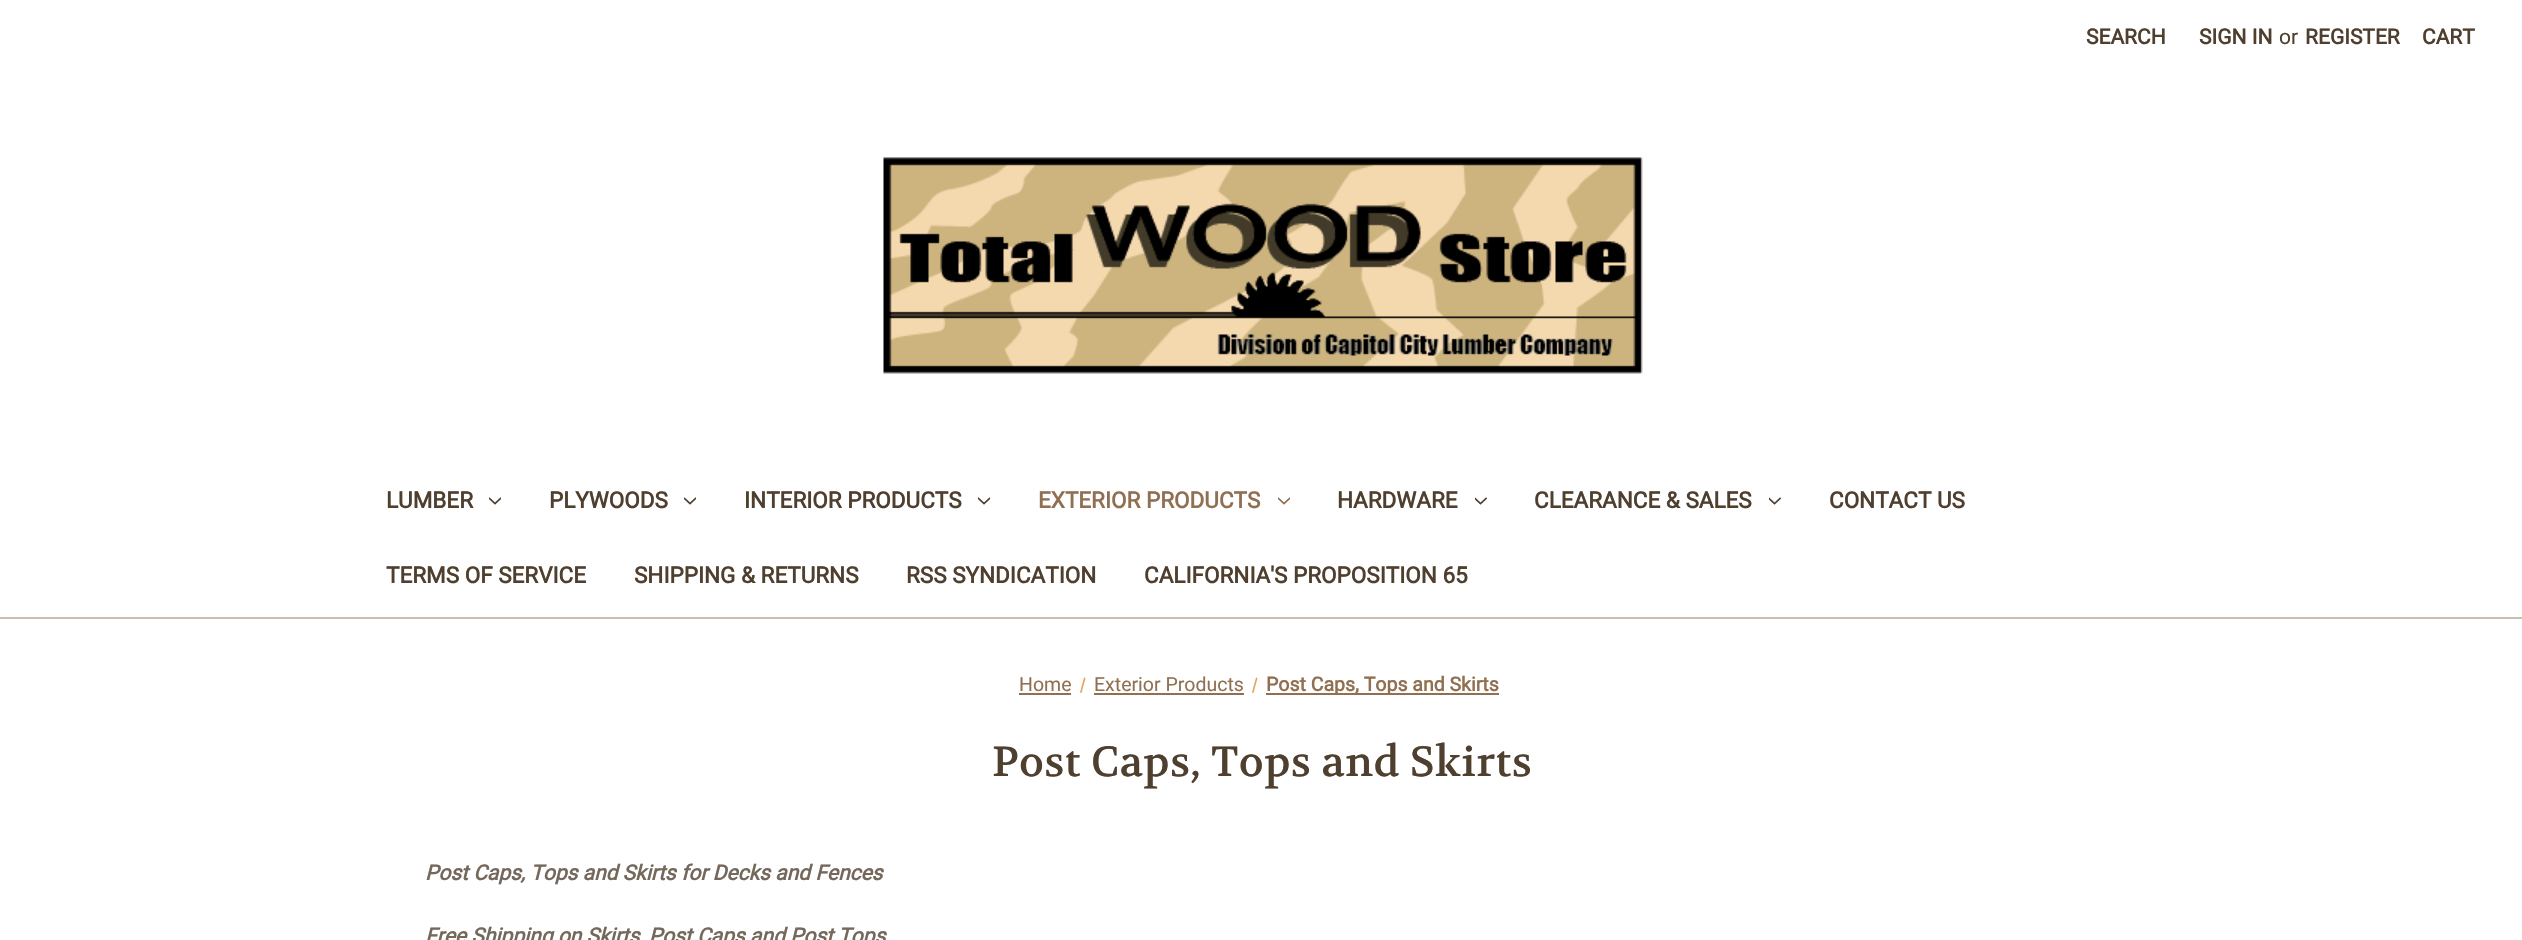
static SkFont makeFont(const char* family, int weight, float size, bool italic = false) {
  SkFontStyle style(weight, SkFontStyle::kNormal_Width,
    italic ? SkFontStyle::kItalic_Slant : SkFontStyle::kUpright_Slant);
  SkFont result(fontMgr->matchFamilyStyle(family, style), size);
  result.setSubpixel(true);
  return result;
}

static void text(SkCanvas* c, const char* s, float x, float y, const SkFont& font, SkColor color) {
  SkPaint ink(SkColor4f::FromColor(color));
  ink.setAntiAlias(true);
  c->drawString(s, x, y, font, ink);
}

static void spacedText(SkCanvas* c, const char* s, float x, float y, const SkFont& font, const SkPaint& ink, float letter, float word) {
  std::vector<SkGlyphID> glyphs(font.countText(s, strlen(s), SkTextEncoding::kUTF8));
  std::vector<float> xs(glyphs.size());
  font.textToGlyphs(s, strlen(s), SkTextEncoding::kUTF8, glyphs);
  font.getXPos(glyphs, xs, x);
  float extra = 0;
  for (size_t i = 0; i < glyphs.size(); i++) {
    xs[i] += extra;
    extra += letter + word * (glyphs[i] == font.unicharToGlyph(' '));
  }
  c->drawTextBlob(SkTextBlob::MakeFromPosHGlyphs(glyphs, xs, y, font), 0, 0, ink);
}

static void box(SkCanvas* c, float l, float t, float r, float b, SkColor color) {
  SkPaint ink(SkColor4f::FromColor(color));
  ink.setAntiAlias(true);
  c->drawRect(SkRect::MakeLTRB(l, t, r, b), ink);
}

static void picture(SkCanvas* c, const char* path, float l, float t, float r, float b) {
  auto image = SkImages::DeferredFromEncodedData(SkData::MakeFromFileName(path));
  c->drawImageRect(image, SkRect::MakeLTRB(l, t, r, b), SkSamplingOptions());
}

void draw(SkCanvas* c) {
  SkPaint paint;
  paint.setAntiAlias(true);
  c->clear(0xffffffff);
  box(c, 0, 617, 2522, 619, 0xffccbdae);
  SkFont face1 = makeFont("Roboto", 700, 21);
  text(c, "SEARCH", 2086, 44, face1, 0xff4f3f2f);
  text(c, "SIGN IN", 2199, 44, face1, 0xff4f3f2f);
  SkFont face2 = makeFont("Roboto", 400, 21);
  text(c, "or", 2279, 44, face2, 0xff4f3f2f);
  text(c, "REGISTER", 2305, 44, face1, 0xff4f3f2f);
  text(c, "CART", 2422, 44, face1, 0xff4f3f2f);
  picture(c, "img_01.png", 883, 157, 1643, 374);
  SkFont face3 = makeFont("Roboto", 700, 22.5f);
  text(c, "LUMBER", 386, 508, face3, 0xff4f3f2f);
  picture(c, "img_02.png", 489, 497, 501, 505);
  text(c, "PLYWOODS", 549, 508, face3, 0xff4f3f2f);
  picture(c, "img_02.png", 684, 497, 696, 505);
  text(c, "INTERIOR PRODUCTS", 744, 508, face3, 0xff4f3f2f);
  picture(c, "img_02.png", 978, 497, 990, 505);
  text(c, "EXTERIOR PRODUCTS", 1038, 508, face3, 0xff917052);
  picture(c, "img_03.png", 1278, 497, 1290, 505);
  text(c, "HARDWARE", 1337, 508, face3, 0xff4f3f2f);
  picture(c, "img_04.png", 1475, 497, 1487, 505);
  text(c, "CLEARANCE & SALES", 1534, 508, face3, 0xff4f3f2f);
  picture(c, "img_04.png", 1769, 497, 1781, 505);
  text(c, "CONTACT US", 1829, 508, face3, 0xff4f3f2f);
  text(c, "TERMS OF SERVICE", 386, 583, face3, 0xff4f3f2f);
  text(c, "SHIPPING & RETURNS", 634, 583, face3, 0xff4f3f2f);
  text(c, "RSS SYNDICATION", 906, 583, face3, 0xff4f3f2f);
  text(c, "CALIFORNIA'S PROPOSITION 65", 1144, 583, face3, 0xff4f3f2f);
  SkFont face4 = makeFont("Roboto", 400, 19.5f);
  text(c, "Home", 1019, 691, face4, 0xff917052);
  box(c, 1019, 693, 1071, 695, 0xff917052);
  paint.setColor(0xffe6a15c);
  c->drawPath(SkPathBuilder().moveTo(1084, 677.5f).lineTo(1085.5f, 678).lineTo(1081.5f, 693).lineTo(1080, 692.5f).close().detach(), paint);
  text(c, "Exterior Products", 1094, 691, face4, 0xff917052);
  box(c, 1094, 693, 1244, 695, 0xff917052);
  c->drawPath(SkPathBuilder().moveTo(1256, 677.5f).lineTo(1257.5f, 678).lineTo(1253.5f, 693).lineTo(1252, 692.5f).close().detach(), paint);
  box(c, 1266, 693, 1499, 695, 0xff917052);
  SkFont face5 = makeFont("Roboto", 700, 19.5f);
  text(c, "Post Caps, Tops and Skirts", 1266, 691, face5, 0xff917052);
  SkFont face6 = makeFont("Volkhov", 400, 42);
  paint.setColor(0xff4f3f2f);
  spacedText(c, "Post Caps, Tops and Skirts", 992, 776, face6, paint, 0.4f, 0);
  SkFont face7 = makeFont("Roboto", 700, 21, true);
  text(c, "Post Caps, Tops and Skirts for Decks and Fences", 425, 880, face7, 0xff74685c);
  text(c, "Free Shipping on Skirts, Post Caps and Post Tops.", 425, 943, face7, 0xff74685c);
}
